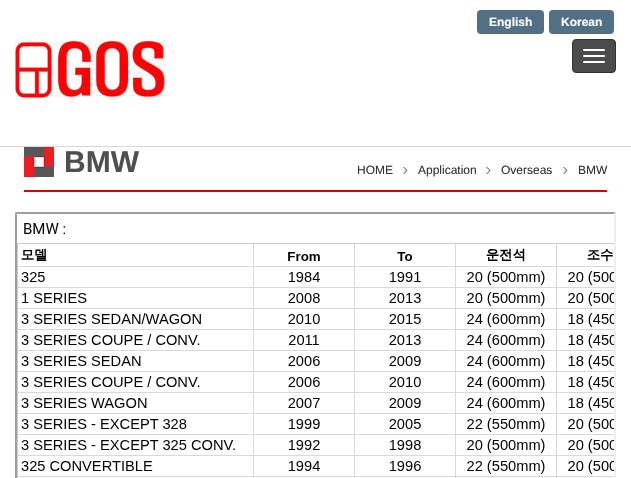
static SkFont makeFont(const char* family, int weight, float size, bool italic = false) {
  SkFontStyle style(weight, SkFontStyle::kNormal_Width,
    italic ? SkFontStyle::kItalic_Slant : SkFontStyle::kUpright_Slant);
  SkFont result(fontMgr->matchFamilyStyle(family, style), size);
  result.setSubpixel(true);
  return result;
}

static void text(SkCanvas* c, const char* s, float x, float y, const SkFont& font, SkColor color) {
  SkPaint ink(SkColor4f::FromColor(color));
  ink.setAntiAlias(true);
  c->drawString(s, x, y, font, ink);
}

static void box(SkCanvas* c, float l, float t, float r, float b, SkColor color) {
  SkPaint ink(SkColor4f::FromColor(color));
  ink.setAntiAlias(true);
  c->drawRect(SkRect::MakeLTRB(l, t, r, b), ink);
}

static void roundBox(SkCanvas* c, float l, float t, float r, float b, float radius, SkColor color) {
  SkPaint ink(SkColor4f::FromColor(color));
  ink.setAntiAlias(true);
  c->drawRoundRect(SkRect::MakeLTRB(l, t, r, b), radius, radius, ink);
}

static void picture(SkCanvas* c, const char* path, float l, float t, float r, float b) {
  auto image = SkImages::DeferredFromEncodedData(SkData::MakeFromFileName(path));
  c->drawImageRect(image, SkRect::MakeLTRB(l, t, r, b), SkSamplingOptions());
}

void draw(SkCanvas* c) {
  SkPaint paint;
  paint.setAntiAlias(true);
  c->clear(0xffffffff);
  box(c, 0, 146, 631, 147, 0xffd9d9d9);
  roundBox(c, 477, 10, 544, 34, 4, 0xff517085);
  SkFont face1 = makeFont("Liberation Sans", 700, 12);
  text(c, "English", 489, 26, face1, 0xffffffff);
  roundBox(c, 549, 10, 614, 34, 4, 0xff517085);
  text(c, "Korean", 561, 26, face1, 0xffffffff);
  picture(c, "img_01.png", 15, 41, 165, 105);
  paint.setColor(0xff4c4c4c);
  c->drawRoundRect(SkRect::MakeLTRB(572.5f, 39.5f, 615.5f, 72.5f), 3.5f, 3.5f, paint);
  paint.setStyle(SkPaint::kStroke_Style);
  paint.setStrokeWidth(1);
  paint.setColor(0xff333333);
  c->drawRoundRect(SkRect::MakeLTRB(572.5f, 39.5f, 615.5f, 72.5f), 3.5f, 3.5f, paint);
  roundBox(c, 583, 49, 605, 51, 1, 0xffffffff);
  roundBox(c, 583, 55, 605, 57, 1, 0xffffffff);
  roundBox(c, 583, 61, 605, 63, 1, 0xffffffff);
  box(c, 24, 190, 607, 192, 0xffd80000);
  picture(c, "img_02.png", 24, 147, 54, 177);
  SkFont face2 = makeFont("Liberation Sans", 700, 30);
  text(c, "BMW", 64, 172, face2, 0xff4f4f4f);
  picture(c, "img_03.png", 403, 167, 408, 174);
  SkFont face3 = makeFont("Liberation Sans", 400, 12);
  text(c, "HOME", 357, 174, face3, 0xff333333);
  picture(c, "img_03.png", 486, 167, 491, 174);
  text(c, "Application", 418, 174, face3, 0xff333333);
  picture(c, "img_03.png", 563, 167, 568, 174);
  text(c, "Overseas", 501, 174, face3, 0xff333333);
  text(c, "BMW", 578, 174, face3, 0xff333333);
  paint.setStyle(SkPaint::kFill_Style);
  paint.setColor(0xff9f9f9f);
  c->drawPath(SkPathBuilder().moveTo(15, 212).lineTo(616, 212).lineTo(614, 214).lineTo(17, 214).close().detach(), paint);
  c->drawPath(SkPathBuilder().moveTo(15, 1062).lineTo(15, 212).lineTo(17, 214).lineTo(17, 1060).close().detach(), paint);
  picture(c, "img_04.png", 17, 223, 614, 478);
  paint.setColor(0xffeeeeee);
  c->drawPath(SkPathBuilder().moveTo(616, 212).lineTo(616, 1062).lineTo(614, 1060).lineTo(614, 214).close().detach(), paint);
}
